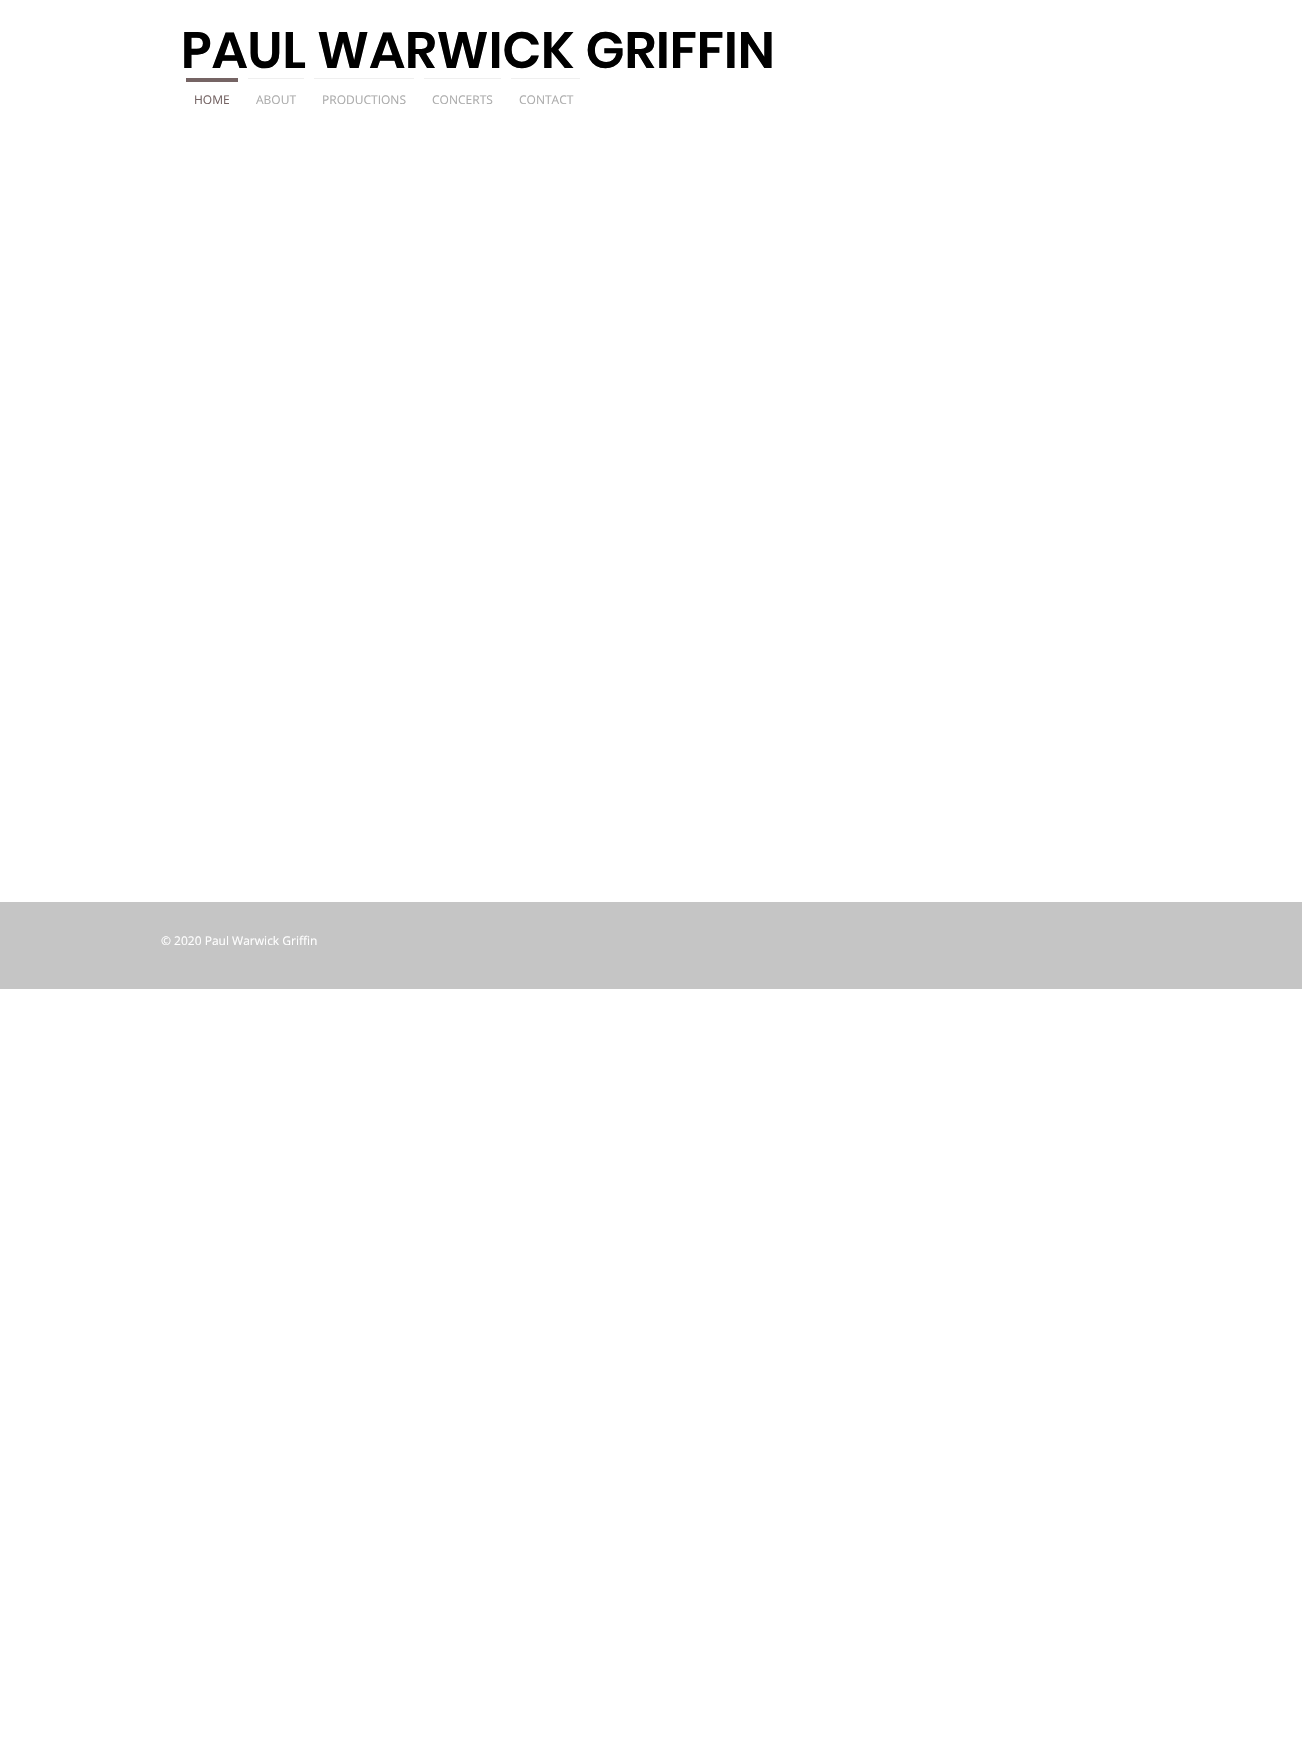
static SkFont makeFont(const char* family, int weight, float size, bool italic = false) {
  SkFontStyle style(weight, SkFontStyle::kNormal_Width,
    italic ? SkFontStyle::kItalic_Slant : SkFontStyle::kUpright_Slant);
  SkFont result(fontMgr->matchFamilyStyle(family, style), size);
  result.setSubpixel(true);
  return result;
}

static void text(SkCanvas* c, const char* s, float x, float y, const SkFont& font, SkColor color) {
  SkPaint ink(SkColor4f::FromColor(color));
  ink.setAntiAlias(true);
  c->drawString(s, x, y, font, ink);
}

static void box(SkCanvas* c, float l, float t, float r, float b, SkColor color) {
  SkPaint ink(SkColor4f::FromColor(color));
  ink.setAntiAlias(true);
  c->drawRect(SkRect::MakeLTRB(l, t, r, b), ink);
}

void draw(SkCanvas* c) {
  SkPaint paint;
  paint.setAntiAlias(true);
  c->clear(0xffffffff);
  SkFont face1 = makeFont("Poppins", 600, 51);
  text(c, "PAUL WARWICK GRIFFIN", 181, 68, face1, 0xff000000);
  box(c, 186, 78, 238, 82, 0xff756464);
  SkFont face2 = makeFont("Open Sans", 400, 12);
  text(c, "HOME", 194, 104, face2, 0xff756464);
  box(c, 248, 78, 304, 79, 0xffefefef);
  text(c, "ABOUT", 256, 104, face2, 0xffababab);
  box(c, 314, 78, 414, 79, 0xffefefef);
  text(c, "PRODUCTIONS", 322, 104, face2, 0xffababab);
  box(c, 424, 78, 501, 79, 0xffefefef);
  text(c, "CONCERTS", 432, 104, face2, 0xffababab);
  box(c, 511, 78, 580, 79, 0xffefefef);
  text(c, "CONTACT", 519, 104, face2, 0xffababab);
  box(c, 0, 902, 1302, 989, 0xffc5c5c5);
  text(c, "© 2020 Paul Warwick Griffin", 161, 945, face2, 0xffffffff);
}
